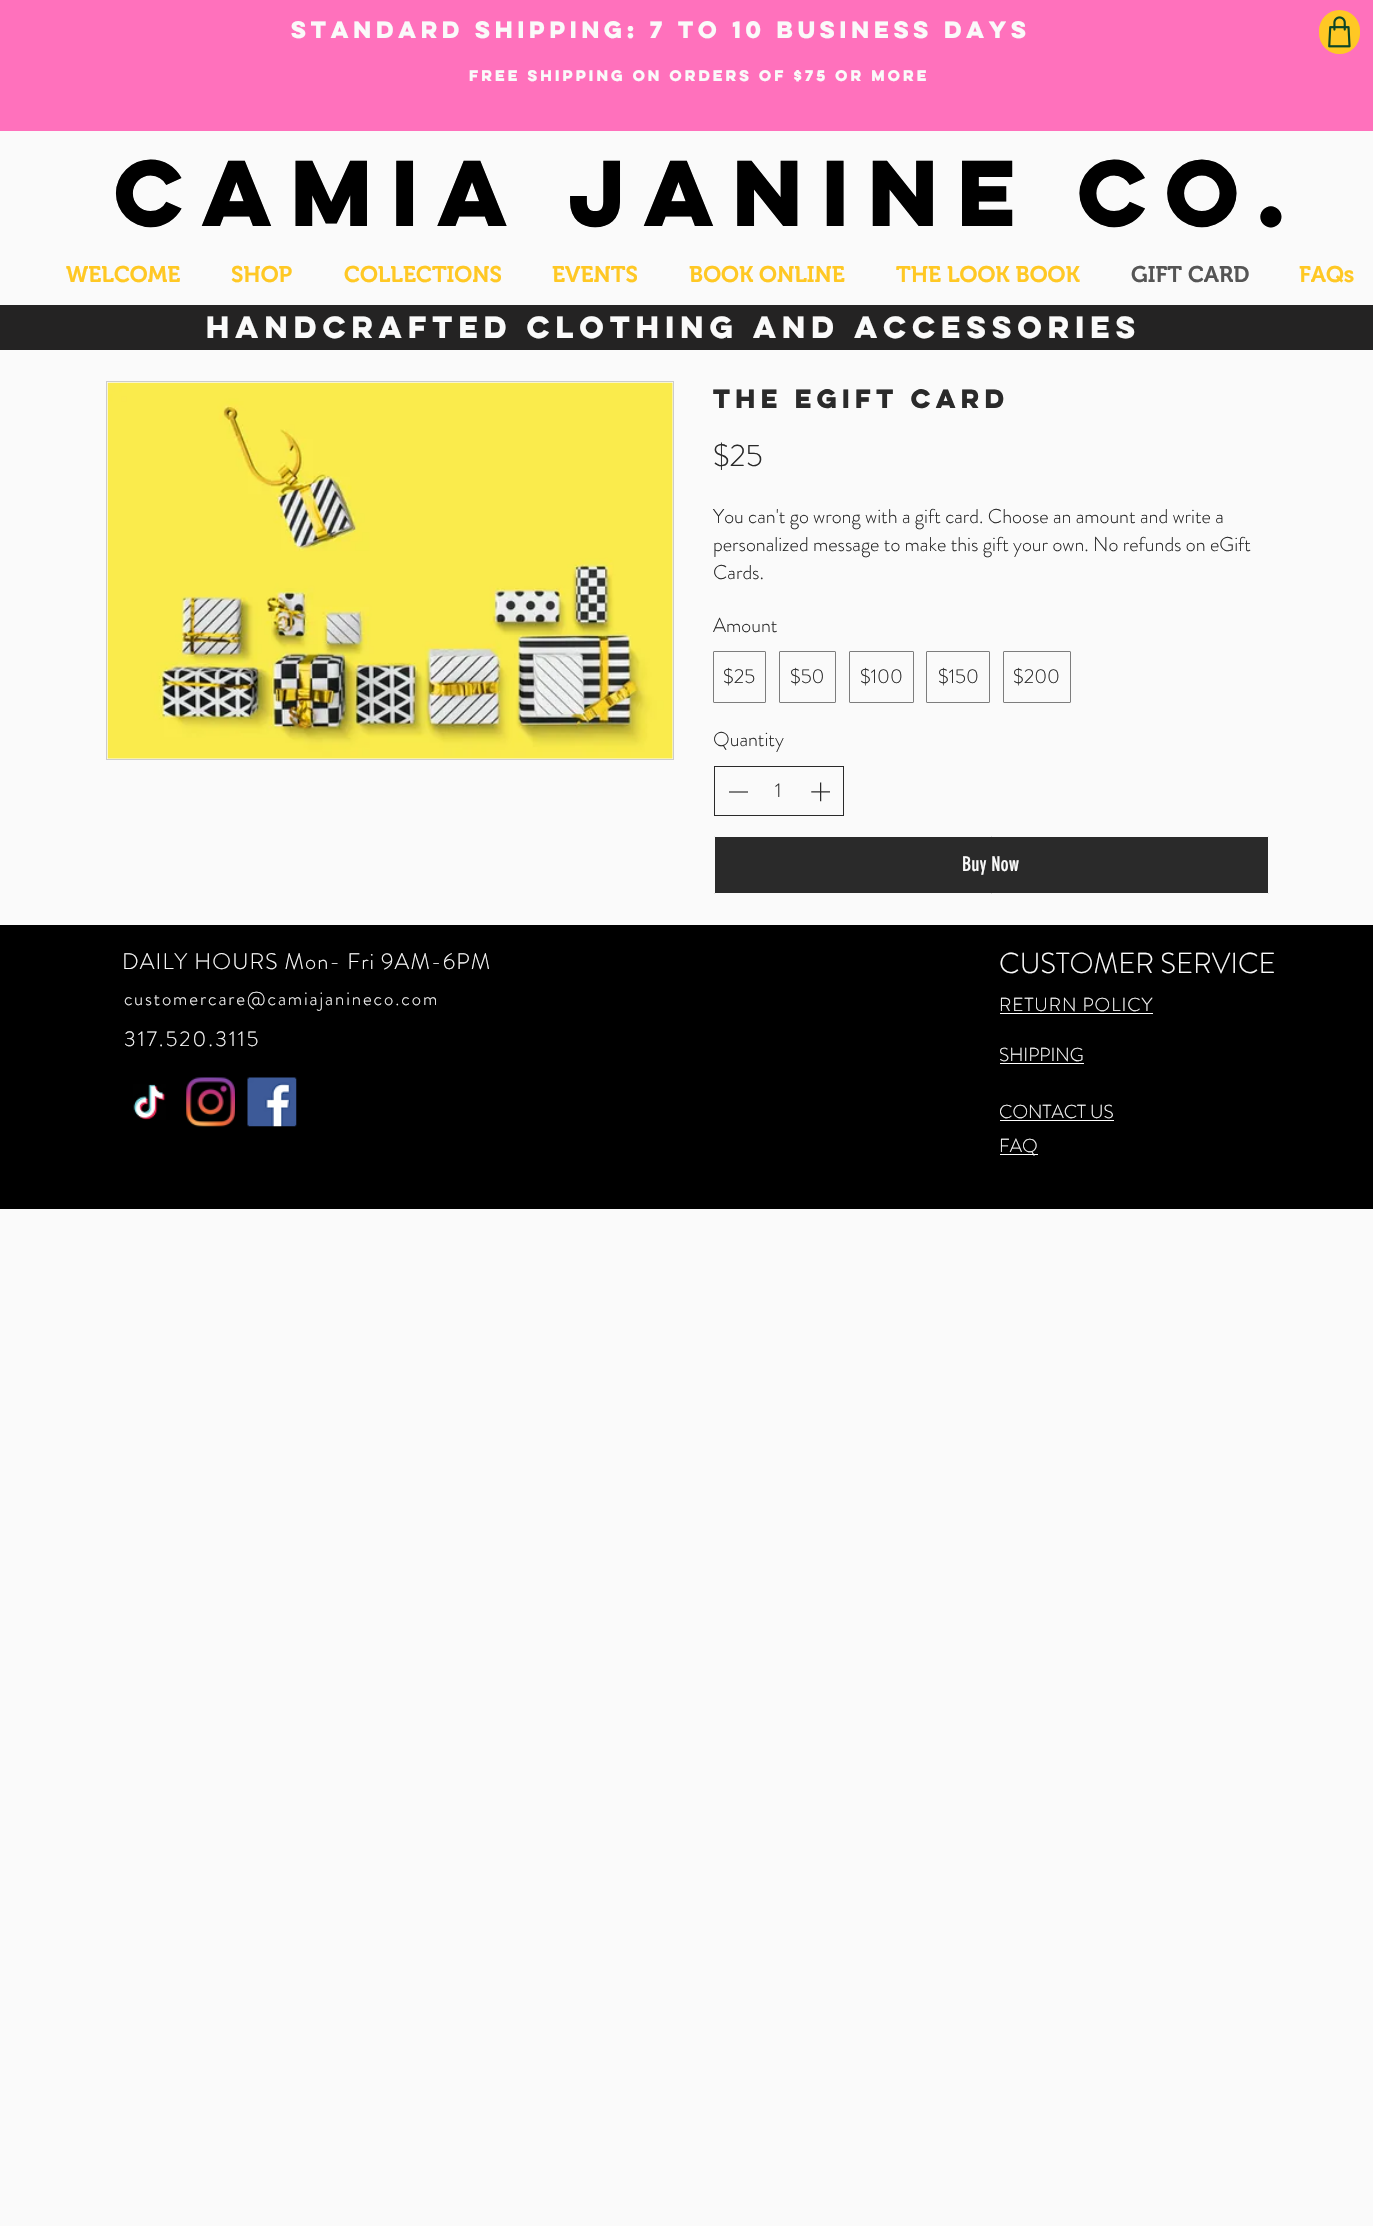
static SkFont makeFont(const char* family, int weight, float size, bool italic = false) {
  SkFontStyle style(weight, SkFontStyle::kNormal_Width,
    italic ? SkFontStyle::kItalic_Slant : SkFontStyle::kUpright_Slant);
  SkFont result(fontMgr->matchFamilyStyle(family, style), size);
  result.setSubpixel(true);
  return result;
}

static void text(SkCanvas* c, const char* s, float x, float y, const SkFont& font, SkColor color) {
  SkPaint ink(SkColor4f::FromColor(color));
  ink.setAntiAlias(true);
  c->drawString(s, x, y, font, ink);
}

static void spacedText(SkCanvas* c, const char* s, float x, float y, const SkFont& font, const SkPaint& ink, float letter, float word) {
  std::vector<SkGlyphID> glyphs(font.countText(s, strlen(s), SkTextEncoding::kUTF8));
  std::vector<float> xs(glyphs.size());
  font.textToGlyphs(s, strlen(s), SkTextEncoding::kUTF8, glyphs);
  font.getXPos(glyphs, xs, x);
  float extra = 0;
  for (size_t i = 0; i < glyphs.size(); i++) {
    xs[i] += extra;
    extra += letter + word * (glyphs[i] == font.unicharToGlyph(' '));
  }
  c->drawTextBlob(SkTextBlob::MakeFromPosHGlyphs(glyphs, xs, y, font), 0, 0, ink);
}

static void box(SkCanvas* c, float l, float t, float r, float b, SkColor color) {
  SkPaint ink(SkColor4f::FromColor(color));
  ink.setAntiAlias(true);
  c->drawRect(SkRect::MakeLTRB(l, t, r, b), ink);
}

static void roundBox(SkCanvas* c, float l, float t, float r, float b, float radius, SkColor color) {
  SkPaint ink(SkColor4f::FromColor(color));
  ink.setAntiAlias(true);
  c->drawRoundRect(SkRect::MakeLTRB(l, t, r, b), radius, radius, ink);
}

static void picture(SkCanvas* c, const char* path, float l, float t, float r, float b) {
  auto image = SkImages::DeferredFromEncodedData(SkData::MakeFromFileName(path));
  c->drawImageRect(image, SkRect::MakeLTRB(l, t, r, b), SkSamplingOptions());
}

void draw(SkCanvas* c) {
  SkPaint paint;
  paint.setAntiAlias(true);
  c->clear(0xfffafafa);
  box(c, 0, 0, 1373, 131, 0xffff71bc);
  SkFont face1 = makeFont("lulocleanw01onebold", 700, 21.25f);
  text(c, "STANDARD SHIPPING: 7 TO 10 BUSINESS DAYS", 291, 38, face1, 0xfffafafa);
  roundBox(c, 1319, 10, 1360, 54, 20.5f, 0xffffc824);
  picture(c, "img_01.png", 1328, 16, 1351, 48);
  SkFont face2 = makeFont("lulocleanw01onebold", 700, 13.75f);
  text(c, "FREE SHIPPING ON ORDERS OF $75 OR MORE", 469, 81, face2, 0xfffafafa);
  SkFont face3 = makeFont("lulocleanw01onebold", 700, 83.75f);
  text(c, "Camia Janine Co.", 114, 226, face3, 0xff000000);
  SkFont face4 = makeFont("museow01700", 600, 22.5f);
  text(c, "WELCOME", 66, 282, face4, 0xffffc824);
  text(c, "SHOP", 231, 282, face4, 0xffffc824);
  text(c, "COLLECTIONS", 344, 282, face4, 0xffffc824);
  text(c, "EVENTS", 552, 282, face4, 0xffffc824);
  text(c, "BOOK ONLINE", 689, 282, face4, 0xffffc824);
  text(c, "THE LOOK BOOK", 896, 282, face4, 0xffffc824);
  text(c, "GIFT CARD", 1131, 282, face4, 0xff555555);
  text(c, "FAQs", 1299, 282, face4, 0xffffc824);
  box(c, 0, 305, 1373, 350, 0xff242323);
  SkFont face5 = makeFont("lulocleanw01onebold", 700, 27.5f);
  text(c, "HANDCRAFTED CLOTHING AND ACCESSORIES", 206, 338, face5, 0xfffafafa);
  paint.setStyle(SkPaint::kStroke_Style);
  paint.setStrokeWidth(1);
  paint.setColor(0xffcccccc);
  c->drawRect(SkRect::MakeLTRB(106.5f, 381.5f, 673.5f, 759.5f), paint);
  picture(c, "img_02.png", 107, 382, 673, 759);
  SkFont face6 = makeFont("lulocleanw01onebold", 700, 23.75f);
  text(c, "The eGift Card", 713, 408, face6, 0xff2a2a2a);
  SkFont face7 = makeFont("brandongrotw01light", 300, 31);
  text(c, "$25", 713, 466, face7, 0xff2a2a2a);
  SkFont face8 = makeFont("brandongrotw01light", 300, 20);
  text(c, "You can't go wrong with a gift card. Choose an amount and write a", 713, 523, face8, 0xff2a2a2a);
  text(c, "personalized message to make this gift your own. No refunds on eGift", 713, 551, face8, 0xff2a2a2a);
  text(c, "Cards.", 713, 579, face8, 0xff2a2a2a);
  text(c, "Amount", 713, 632, face8, 0xff2a2a2a);
  paint.setColor(0xff7d7d7d);
  c->drawRoundRect(SkRect::MakeLTRB(713.5f, 651.5f, 765.5f, 702.5f), 0.5f, 0.5f, paint);
  text(c, "$25", 723, 683, face8, 0xff2a2a2a);
  c->drawRoundRect(SkRect::MakeLTRB(779.5f, 651.5f, 835.5f, 702.5f), 0.5f, 0.5f, paint);
  text(c, "$50", 790, 683, face8, 0xff2a2a2a);
  c->drawRoundRect(SkRect::MakeLTRB(849.5f, 651.5f, 913.5f, 702.5f), 0.5f, 0.5f, paint);
  text(c, "$100", 860, 683, face8, 0xff2a2a2a);
  c->drawRoundRect(SkRect::MakeLTRB(926.5f, 651.5f, 989.5f, 702.5f), 0.5f, 0.5f, paint);
  text(c, "$150", 938, 683, face8, 0xff2a2a2a);
  c->drawRoundRect(SkRect::MakeLTRB(1003.5f, 651.5f, 1070.5f, 702.5f), 0.5f, 0.5f, paint);
  text(c, "$200", 1013, 683, face8, 0xff2a2a2a);
  text(c, "Quantity", 713, 746, face8, 0xff2a2a2a);
  paint.setColor(0xff2a2a2a);
  c->drawRect(SkRect::MakeLTRB(714.5f, 766.5f, 843.5f, 815.5f), paint);
  box(c, 729, 791, 748, 793, 0xff808080);
  text(c, "1", 775, 797, face8, 0xff2a2a2a);
  picture(c, "img_03.png", 811, 782, 830, 802);
  paint.setStyle(SkPaint::kFill_Style);
  c->drawRoundRect(SkRect::MakeLTRB(714.5f, 836.5f, 1268.5f, 893.5f), 0.5f, 0.5f, paint);
  paint.setStyle(SkPaint::kStroke_Style);
  paint.setColor(0xfffafafa);
  c->drawRoundRect(SkRect::MakeLTRB(714.5f, 836.5f, 1268.5f, 893.5f), 0.5f, 0.5f, paint);
  SkFont face9 = makeFont("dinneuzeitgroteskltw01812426", 400, 20);
  text(c, "Buy Now", 962, 871, face9, 0xfffafafa);
  box(c, 0, 925, 1373, 1209, 0xff000000);
  SkFont face10 = makeFont("brandongrotw01light", 300, 22.5f);
  paint.setStyle(SkPaint::kFill_Style);
  spacedText(c, "DAILY HOURS Mon- Fri 9AM-6PM", 122, 969, face10, paint, 1.1f, 0);
  SkFont face11 = makeFont("brandongrotw01light", 300, 28.75f);
  text(c, "CUSTOMER SERVICE", 999, 973, face11, 0xfffafafa);
  SkFont face12 = makeFont("brandongrotw01light", 300, 18.75f);
  spacedText(c, "c", 124, 1005, face12, paint, 1, 0);
  spacedText(c, "ustomercare@camiajanineco.com", 134, 1005, face12, paint, 1.9f, 0);
  spacedText(c, "RETURN POLICY", 999, 1011, face12, paint, 1, 0);
  box(c, 1000, 1013, 1153, 1014, 0xffffffff);
  SkFont face13 = makeFont("brandongrotw01light", 300, 21.25f);
  spacedText(c, "317.520.3115", 124, 1046, face13, paint, 2.1f, 0);
  text(c, "SHIPPING", 999, 1061, face12, 0xfffafafa);
  box(c, 1000, 1063, 1084, 1064, 0xffffffff);
  picture(c, "img_04.png", 133, 1084, 166, 1120);
  picture(c, "img_05.png", 186, 1077, 235, 1127);
  picture(c, "img_06.png", 247, 1077, 297, 1127);
  text(c, "CONTACT US", 999, 1118, face12, 0xfffafafa);
  box(c, 1000, 1120, 1114, 1121, 0xffffffff);
  box(c, 1000, 1154, 1038, 1155, 0xffffffff);
  text(c, "FAQ", 999, 1152, face12, 0xfffafafa);
}
